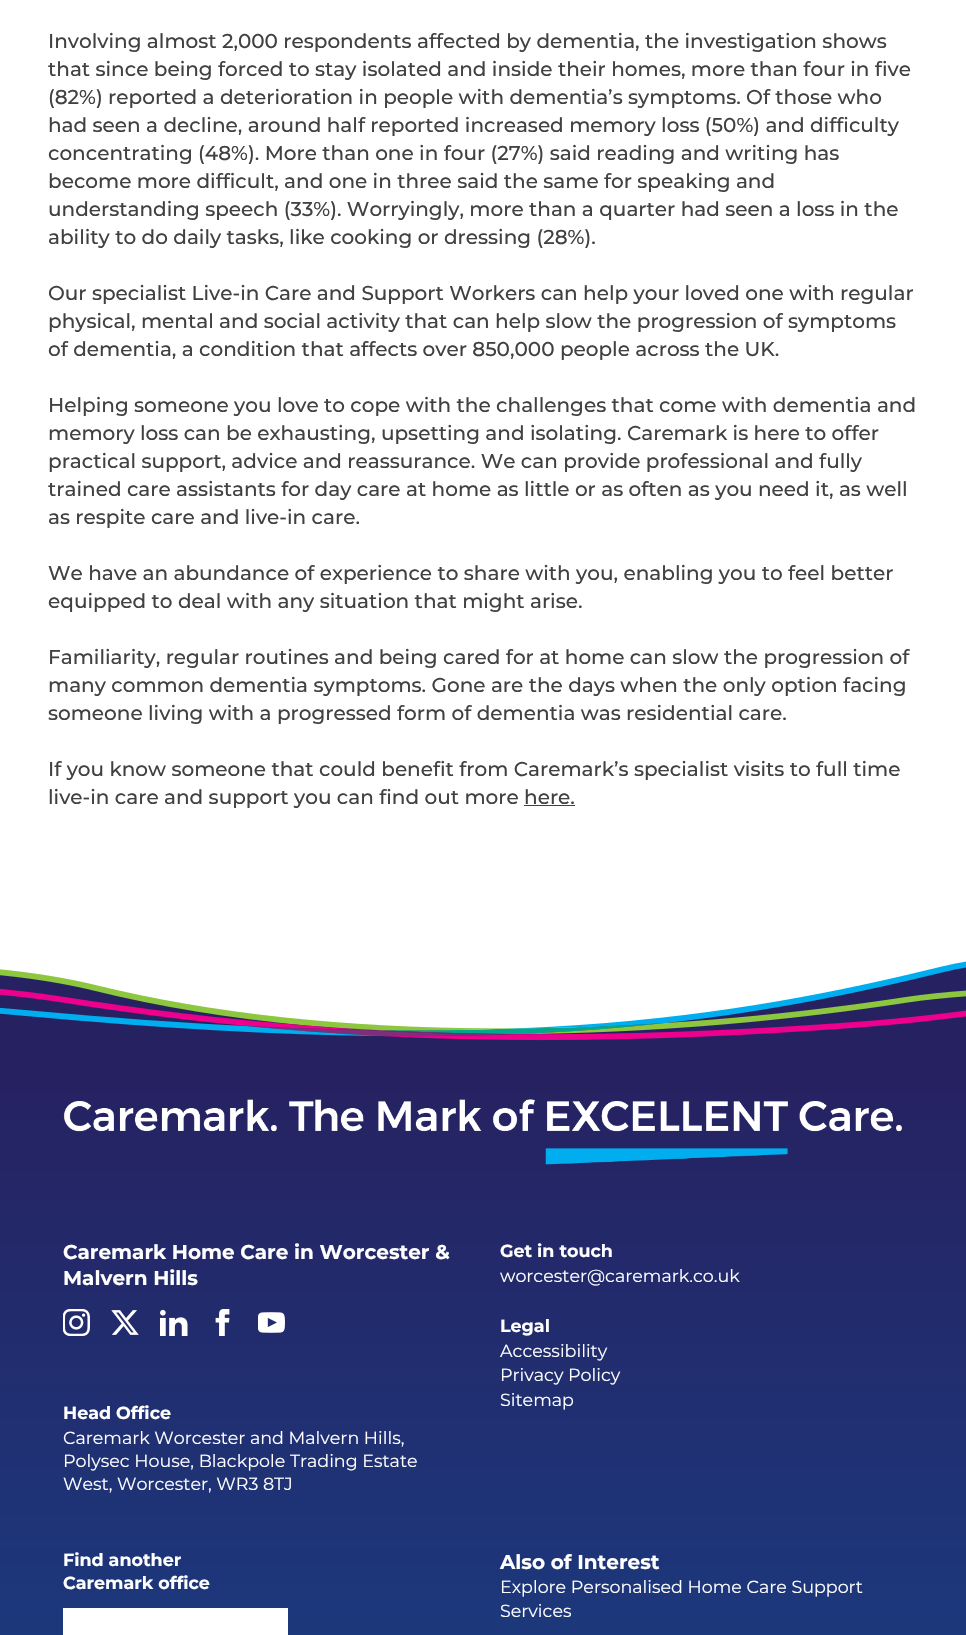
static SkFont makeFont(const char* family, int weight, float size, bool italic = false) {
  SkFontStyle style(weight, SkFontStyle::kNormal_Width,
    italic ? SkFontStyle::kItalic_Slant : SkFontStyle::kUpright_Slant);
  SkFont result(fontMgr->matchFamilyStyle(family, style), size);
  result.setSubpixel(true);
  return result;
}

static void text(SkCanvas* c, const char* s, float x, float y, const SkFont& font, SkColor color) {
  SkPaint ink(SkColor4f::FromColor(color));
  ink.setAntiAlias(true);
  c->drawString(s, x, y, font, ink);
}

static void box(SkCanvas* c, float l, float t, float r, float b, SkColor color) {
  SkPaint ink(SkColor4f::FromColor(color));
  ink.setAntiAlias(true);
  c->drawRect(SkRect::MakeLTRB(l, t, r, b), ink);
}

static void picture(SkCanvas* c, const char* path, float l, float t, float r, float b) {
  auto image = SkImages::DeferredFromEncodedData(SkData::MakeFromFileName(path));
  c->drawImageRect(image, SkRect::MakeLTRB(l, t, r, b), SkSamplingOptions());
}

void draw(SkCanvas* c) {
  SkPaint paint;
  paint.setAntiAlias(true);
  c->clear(0xffffffff);
  SkFont face1 = makeFont("Montserrat", 500, 20);
  text(c, "Involving almost 2,000 respondents affected by dementia, the investigation shows", 48, 48, face1, 0xff414141);
  text(c, "that since being forced to stay isolated and inside their homes, more than four in five", 48, 76, face1, 0xff414141);
  text(c, "(82%) reported a deterioration in people with dementia’s symptoms. Of those who", 48, 104, face1, 0xff414141);
  text(c, "had seen a decline, around half reported increased memory loss (50%) and difficulty", 48, 132, face1, 0xff414141);
  text(c, "concentrating (48%). More than one in four (27%) said reading and writing has", 48, 160, face1, 0xff414141);
  text(c, "become more difficult, and one in three said the same for speaking and", 48, 188, face1, 0xff414141);
  text(c, "understanding speech (33%). Worryingly, more than a quarter had seen a loss in the", 48, 216, face1, 0xff414141);
  text(c, "ability to do daily tasks, like cooking or dressing (28%).", 48, 244, face1, 0xff414141);
  text(c, "Our specialist Live-in Care and Support Workers can help your loved one with regular", 48, 300, face1, 0xff414141);
  text(c, "physical, mental and social activity that can help slow the progression of symptoms", 48, 328, face1, 0xff414141);
  text(c, "of dementia, a condition that affects over 850,000 people across the UK.", 48, 356, face1, 0xff414141);
  text(c, "Helping someone you love to cope with the challenges that come with dementia and", 48, 412, face1, 0xff414141);
  text(c, "memory loss can be exhausting, upsetting and isolating. Caremark is here to offer", 48, 440, face1, 0xff414141);
  text(c, "practical support, advice and reassurance. We can provide professional and fully", 48, 468, face1, 0xff414141);
  text(c, "trained care assistants for day care at home as little or as often as you need it, as well", 48, 496, face1, 0xff414141);
  text(c, "as respite care and live-in care.", 48, 524, face1, 0xff414141);
  text(c, "We have an abundance of experience to share with you, enabling you to feel better", 48, 580, face1, 0xff414141);
  text(c, "equipped to deal with any situation that might arise.", 48, 608, face1, 0xff414141);
  text(c, "Familiarity, regular routines and being cared for at home can slow the progression of", 48, 664, face1, 0xff414141);
  text(c, "many common dementia symptoms. Gone are the days when the only option facing", 48, 692, face1, 0xff414141);
  text(c, "someone living with a progressed form of dementia was residential care.", 48, 720, face1, 0xff414141);
  text(c, "If you know someone that could benefit from Caremark’s specialist visits to full time", 48, 776, face1, 0xff414141);
  text(c, "live-in care and support you can find out more here.", 48, 804, face1, 0xff414141);
  box(c, 524, 805, 575, 806, 0xff414141);
  picture(c, "img_01.png", 0, 961, 966, 1083);
  {
    const SkColor colors[] = {0xff262262, 0xff174388};
    const float stops[] = {0, 1};
    const SkPoint ends[] = {{483, 1083}, {483, 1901}};
    paint.setShader(SkGradientShader::MakeLinear(ends, colors, stops, 2, SkTileMode::kClamp));
    paint.setAlpha(255);
  }
  c->drawRect(SkRect::MakeLTRB(0, 1083, 966, 1635), paint);
  picture(c, "img_02.png", 63, 1099, 902, 1165);
  SkFont face2 = makeFont("Montserrat", 700, 20);
  text(c, "Caremark Home Care in Worcester &", 63, 1259, face2, 0xffffffff);
  text(c, "Malvern Hills", 63, 1285, face2, 0xffffffff);
  picture(c, "img_03.png", 63, 1309, 90, 1336);
  picture(c, "img_04.png", 111, 1310, 139, 1335);
  picture(c, "img_05.png", 160, 1309, 188, 1336);
  picture(c, "img_06.png", 215, 1309, 230, 1336);
  picture(c, "img_07.png", 258, 1312, 285, 1333);
  SkFont face3 = makeFont("Montserrat", 700, 17.5f);
  text(c, "Head Office", 63, 1419, face3, 0xffffffff);
  SkFont face4 = makeFont("Montserrat", 400, 17.5f);
  text(c, "Caremark Worcester and Malvern Hills,", 63, 1444, face4, 0xffffffff);
  text(c, "Polysec House, Blackpole Trading Estate", 63, 1467, face4, 0xffffffff);
  text(c, "West, Worcester, WR3 8TJ", 63, 1490, face4, 0xffffffff);
  text(c, "Get in touch", 500, 1257, face3, 0xffffffff);
  text(c, "worcester@caremark.co.uk", 500, 1282, face4, 0xffffffff);
  text(c, "Legal", 500, 1332, face3, 0xffffffff);
  text(c, "Accessibility", 500, 1357, face4, 0xffffffff);
  text(c, "Privacy Policy", 500, 1381, face4, 0xffffffff);
  text(c, "Sitemap", 500, 1406, face4, 0xffffffff);
  text(c, "Find another", 63, 1566, face3, 0xffffffff);
  text(c, "Caremark office", 63, 1589, face3, 0xffffffff);
  box(c, 63, 1608, 288, 1635, 0xffffffff);
  text(c, "Also of Interest", 500, 1569, face2, 0xffffffff);
  text(c, "Explore Personalised Home Care Support", 500, 1593, face4, 0xffffffff);
  text(c, "Services", 500, 1617, face4, 0xffffffff);
}
